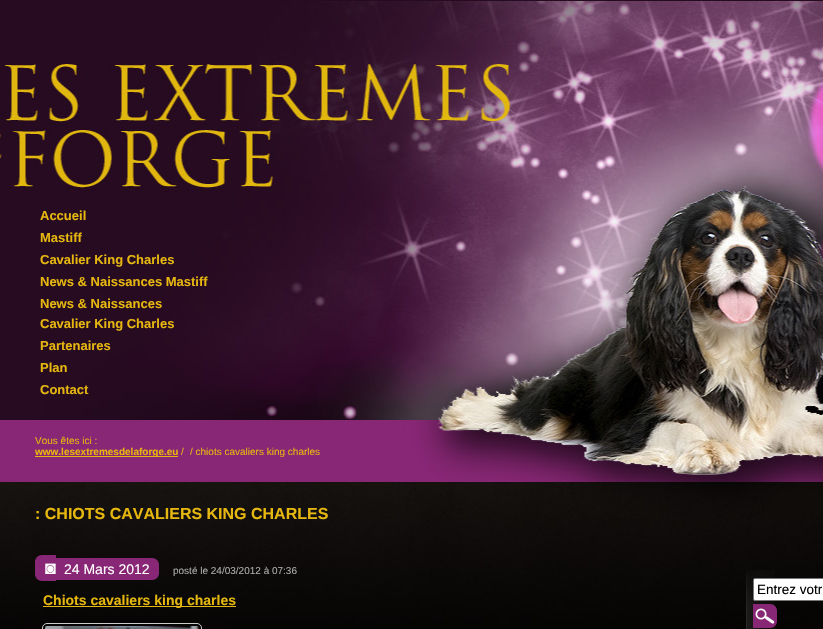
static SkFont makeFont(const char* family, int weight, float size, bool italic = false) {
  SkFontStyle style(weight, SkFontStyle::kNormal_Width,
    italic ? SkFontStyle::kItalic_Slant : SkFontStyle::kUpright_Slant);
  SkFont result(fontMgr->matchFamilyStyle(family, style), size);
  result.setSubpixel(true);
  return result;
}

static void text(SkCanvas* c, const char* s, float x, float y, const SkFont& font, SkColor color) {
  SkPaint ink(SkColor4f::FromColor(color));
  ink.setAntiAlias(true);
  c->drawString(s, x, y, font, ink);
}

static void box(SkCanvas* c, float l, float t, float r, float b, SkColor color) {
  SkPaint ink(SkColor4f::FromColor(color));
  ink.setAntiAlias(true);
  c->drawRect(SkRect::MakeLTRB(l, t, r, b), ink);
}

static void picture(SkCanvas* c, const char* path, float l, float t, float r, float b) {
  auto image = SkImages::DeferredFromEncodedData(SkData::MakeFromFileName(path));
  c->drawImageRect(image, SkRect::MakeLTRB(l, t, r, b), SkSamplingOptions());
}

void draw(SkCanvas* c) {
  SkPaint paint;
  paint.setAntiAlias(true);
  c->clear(0xffffffff);
  picture(c, "img_01.png", 0, 0, 823, 629);
  SkFont face1 = makeFont("Liberation Sans", 700, 13);
  text(c, "Accueil", 40, 220, face1, 0xffe6b70f);
  text(c, "Mastiff", 40, 242, face1, 0xffe6b70f);
  text(c, "Cavalier King Charles", 40, 264, face1, 0xffe6b70f);
  text(c, "News & Naissances Mastiff", 40, 286, face1, 0xffe6b70f);
  text(c, "News & Naissances", 40, 308, face1, 0xffe6b70f);
  text(c, "Cavalier King Charles", 40, 328, face1, 0xffe6b70f);
  text(c, "Partenaires", 40, 350, face1, 0xffe6b70f);
  text(c, "Plan", 40, 372, face1, 0xffe6b70f);
  text(c, "Contact", 40, 394, face1, 0xffe6b70f);
  SkFont face2 = makeFont("Liberation Sans", 400, 10);
  text(c, "Vous êtes ici :", 35, 444, face2, 0xffe6b70f);
  box(c, 35, 456, 178, 457, 0xffe6b70f);
  SkFont face3 = makeFont("Liberation Sans", 700, 10);
  text(c, "www.lesextremesdelaforge.eu", 35, 455, face3, 0xffe6b70f);
  text(c, "/", 181, 455, face2, 0xffe6b70f);
  text(c, "/ chiots cavaliers king charles", 190, 455, face2, 0xffe6b70f);
  SkFont face4 = makeFont("Liberation Sans", 700, 16);
  text(c, ": CHIOTS CAVALIERS KING CHARLES", 35, 519, face4, 0xffe6b70f);
  paint.setColor(0xff882775);
  c->drawPath(SkPathBuilder().moveTo(42, 555).lineTo(56, 555).lineTo(56, 581).lineTo(42, 581).cubicTo(38, 581, 35, 578, 35, 574).lineTo(35, 562).cubicTo(35, 558, 38, 555, 42, 555).close().detach(), paint);
  SkFont face5 = makeFont("Liberation Sans", 400, 18);
  text(c, "◙", 45, 574, face5, 0xffffffff);
  c->drawPath(SkPathBuilder().moveTo(56, 558).lineTo(152, 558).cubicTo(156, 558, 159, 561, 159, 565).lineTo(159, 573).cubicTo(159, 577, 156, 580, 152, 580).lineTo(56, 580).close().detach(), paint);
  SkFont face6 = makeFont("Liberation Sans", 400, 14);
  text(c, "24 Mars 2012", 64, 574, face6, 0xffffffff);
  text(c, "posté le 24/03/2012 à 07:36", 173, 574, face2, 0xffaaaaaa);
  box(c, 43, 606, 236, 607, 0xffe6b70f);
  SkFont face7 = makeFont("Liberation Sans", 700, 14);
  text(c, "Chiots cavaliers king charles", 43, 605, face7, 0xffe6b70f);
  paint.setStyle(SkPaint::kStroke_Style);
  paint.setStrokeWidth(1);
  paint.setColor(0xffcccccc);
  c->drawRoundRect(SkRect::MakeLTRB(42.5f, 623.5f, 201.5f, 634.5f), 4.5f, 4.5f, paint);
  picture(c, "img_02.png", 45, 626, 199, 629);
  picture(c, "img_03.png", 746, 570, 775, 629);
  paint.setStyle(SkPaint::kFill_Style);
  paint.setColor(0xffffffff);
  c->drawRoundRect(SkRect::MakeLTRB(753.5f, 578.5f, 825.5f, 600.5f), 1.5f, 1.5f, paint);
  paint.setStyle(SkPaint::kStroke_Style);
  paint.setColor(0xff767676);
  c->drawRoundRect(SkRect::MakeLTRB(753.5f, 578.5f, 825.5f, 600.5f), 1.5f, 1.5f, paint);
  SkFont face8 = makeFont("Liberation Sans", 400, 13.5f);
  text(c, "Entrez votr", 757, 594, face8, 0xff000000);
  paint.setStyle(SkPaint::kFill_Style);
  paint.setColor(0xff882775);
  c->drawPath(SkPathBuilder().moveTo(753, 604).lineTo(770, 604).cubicTo(774, 604, 777, 607, 777, 611).lineTo(777, 621).cubicTo(777, 625, 774, 628, 770, 628).lineTo(753, 628).close().detach(), paint);
  picture(c, "img_04.png", 755, 608, 775, 624);
}
